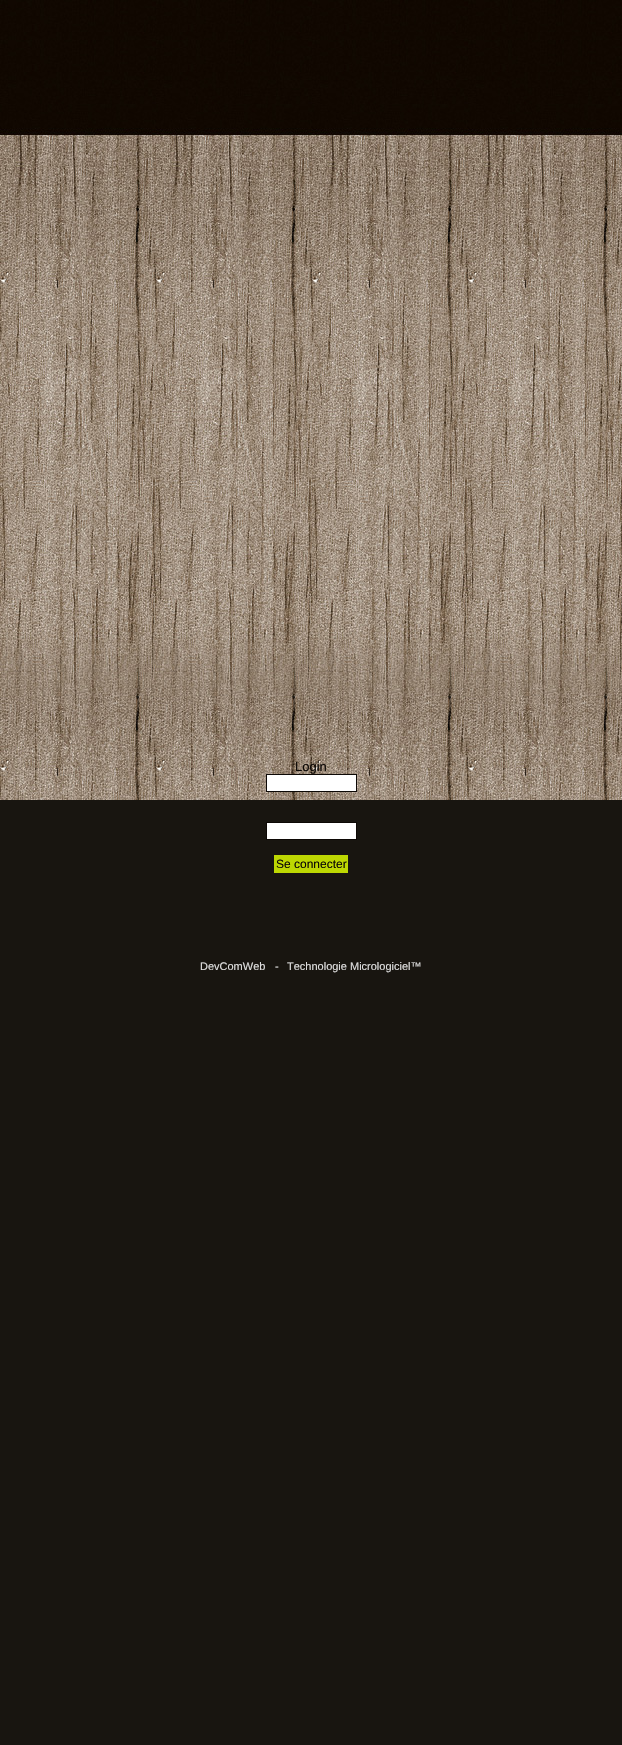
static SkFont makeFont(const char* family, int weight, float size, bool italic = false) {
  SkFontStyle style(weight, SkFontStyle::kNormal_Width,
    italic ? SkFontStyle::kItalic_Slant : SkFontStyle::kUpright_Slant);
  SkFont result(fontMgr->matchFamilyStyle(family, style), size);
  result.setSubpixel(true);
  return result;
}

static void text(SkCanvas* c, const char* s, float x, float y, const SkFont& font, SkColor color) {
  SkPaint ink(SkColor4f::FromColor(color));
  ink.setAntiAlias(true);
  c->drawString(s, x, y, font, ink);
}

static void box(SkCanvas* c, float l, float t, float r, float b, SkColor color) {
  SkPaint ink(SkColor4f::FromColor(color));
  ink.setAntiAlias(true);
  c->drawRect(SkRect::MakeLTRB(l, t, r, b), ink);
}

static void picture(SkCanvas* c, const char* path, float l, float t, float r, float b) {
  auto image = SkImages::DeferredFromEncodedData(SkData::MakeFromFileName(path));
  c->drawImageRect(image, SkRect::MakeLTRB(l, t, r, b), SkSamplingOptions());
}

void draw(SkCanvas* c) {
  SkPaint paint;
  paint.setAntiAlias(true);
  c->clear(0xff181510);
  picture(c, "img_01.png", 0, 0, 622, 800);
  SkFont face1 = makeFont("Liberation Sans", 400, 13);
  text(c, "Login", 295, 771, face1, 0xff0c0805);
  paint.setColor(0xffffffff);
  c->drawRect(SkRect::MakeLTRB(266.5f, 774.5f, 356.5f, 791.5f), paint);
  paint.setStyle(SkPaint::kStroke_Style);
  paint.setStrokeWidth(1);
  paint.setColor(0xff0c0805);
  c->drawRect(SkRect::MakeLTRB(266.5f, 774.5f, 356.5f, 791.5f), paint);
  paint.setStyle(SkPaint::kFill_Style);
  paint.setColor(0xffffffff);
  c->drawRect(SkRect::MakeLTRB(266.5f, 822.5f, 356.5f, 839.5f), paint);
  paint.setStyle(SkPaint::kStroke_Style);
  paint.setColor(0xff0c0805);
  c->drawRect(SkRect::MakeLTRB(266.5f, 822.5f, 356.5f, 839.5f), paint);
  box(c, 274, 855, 348, 873, 0xffbdd702);
  SkFont face2 = makeFont("Liberation Sans", 400, 12);
  text(c, "Se connecter", 276, 868, face2, 0xff0c0805);
  SkFont face3 = makeFont("Liberation Sans", 400, 11);
  text(c, "DevComWeb", 200, 970, face3, 0xffe0e0e0);
  text(c, "-", 275, 970, face3, 0xffe0e0e0);
  text(c, "Technologie Micrologiciel™", 287, 970, face3, 0xffe0e0e0);
}
